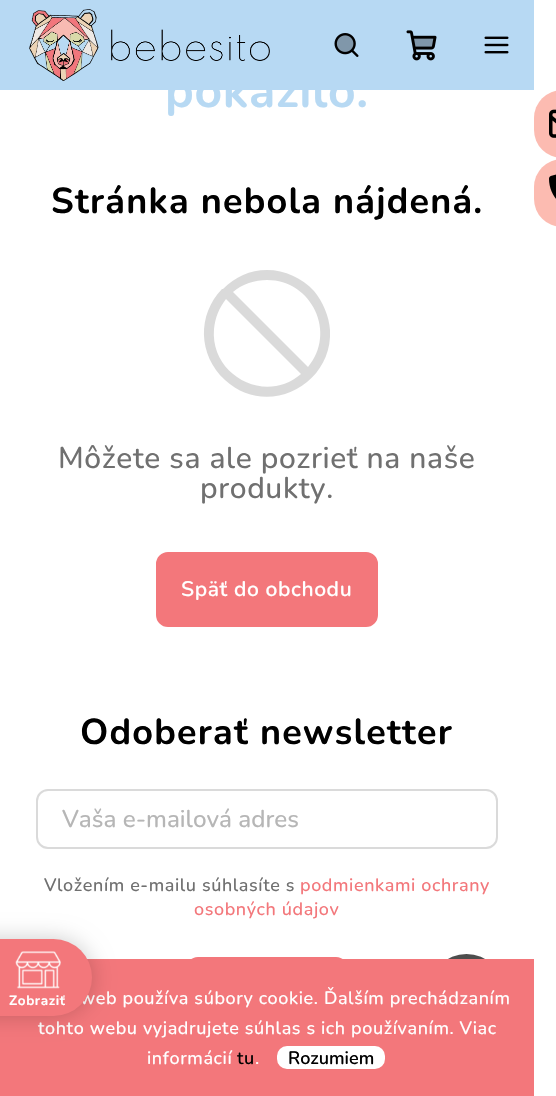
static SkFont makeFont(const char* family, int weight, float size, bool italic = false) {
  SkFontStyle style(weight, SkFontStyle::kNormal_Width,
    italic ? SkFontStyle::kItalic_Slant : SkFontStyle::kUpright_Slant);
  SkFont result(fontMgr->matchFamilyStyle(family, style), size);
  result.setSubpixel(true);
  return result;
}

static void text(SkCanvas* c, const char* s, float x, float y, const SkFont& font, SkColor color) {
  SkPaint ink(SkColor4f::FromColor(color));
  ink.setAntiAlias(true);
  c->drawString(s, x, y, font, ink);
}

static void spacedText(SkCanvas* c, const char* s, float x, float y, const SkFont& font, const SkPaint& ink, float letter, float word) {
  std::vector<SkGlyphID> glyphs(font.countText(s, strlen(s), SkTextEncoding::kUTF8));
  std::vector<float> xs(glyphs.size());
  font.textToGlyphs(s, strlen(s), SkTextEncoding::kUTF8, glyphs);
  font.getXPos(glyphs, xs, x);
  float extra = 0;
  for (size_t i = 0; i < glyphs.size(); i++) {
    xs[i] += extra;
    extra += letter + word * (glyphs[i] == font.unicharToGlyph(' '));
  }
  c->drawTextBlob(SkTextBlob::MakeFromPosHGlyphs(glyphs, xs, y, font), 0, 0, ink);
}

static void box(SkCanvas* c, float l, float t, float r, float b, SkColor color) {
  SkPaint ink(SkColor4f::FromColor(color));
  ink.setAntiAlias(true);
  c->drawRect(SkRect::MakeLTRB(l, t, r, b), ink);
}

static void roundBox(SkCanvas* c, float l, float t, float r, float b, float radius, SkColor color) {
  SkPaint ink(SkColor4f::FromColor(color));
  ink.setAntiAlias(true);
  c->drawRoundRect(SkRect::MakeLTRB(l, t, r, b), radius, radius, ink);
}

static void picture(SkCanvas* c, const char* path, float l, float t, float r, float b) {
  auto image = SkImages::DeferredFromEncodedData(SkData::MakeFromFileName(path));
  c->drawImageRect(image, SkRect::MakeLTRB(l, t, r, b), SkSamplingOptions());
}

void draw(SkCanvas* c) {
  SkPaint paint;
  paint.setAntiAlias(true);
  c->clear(0xffffffff);
  box(c, 0, 0, 534, 90, 0xffb7d9f3);
  SkFont face1 = makeFont("Nunito", 700, 48);
  paint.setColor(0xffb7d9f3);
  spacedText(c, "pokazilo.", 165, 107, face1, paint, 0.6f, 0);
  picture(c, "img_01.png", 29, 9, 270, 81);
  picture(c, "img_02.png", 334, 33, 359, 57);
  paint.setColor(0x4d000000);
  c->drawPath(SkPathBuilder().moveTo(345, 53).cubicTo(357.5f, 53, 357.5f, 34, 345, 34).cubicTo(333, 34, 333, 53, 345, 53).close().detach(), paint);
  picture(c, "img_03.png", 406, 30, 437, 61);
  c->drawPath(SkPathBuilder().moveTo(414.5f, 48).lineTo(428.5f, 48).cubicTo(432.5f, 48, 433, 48.5f, 433.5f, 45).lineTo(435, 37).lineTo(412.5f, 37).close().detach(), paint);
  picture(c, "img_04.png", 484, 36, 509, 54);
  roundBox(c, 534, 90, 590, 158, 34, 0xfffcbbb1);
  picture(c, "img_05.png", 549, 109, 556, 138);
  roundBox(c, 534, 159, 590, 227, 34, 0xfffcbbb1);
  picture(c, "img_06.png", 549, 174, 556, 199);
  SkFont face2 = makeFont("Nunito", 700, 36);
  paint.setColor(0xff000000);
  spacedText(c, "Stránka nebola nájdená.", 51, 213, face2, paint, 1.2f, 0);
  paint.setColor(0xffdadada);
  c->drawPath(SkPathBuilder().moveTo(267, 270).cubicTo(250, 270, 235, 277, 223, 289).lineTo(222, 289).cubicTo(197, 315, 198, 355, 225, 380).cubicTo(267, 419, 333, 385, 330, 330).cubicTo(329, 316, 323, 302, 314, 291).cubicTo(302, 278, 285, 270, 267, 270).close().moveTo(267, 280).cubicTo(312, 280, 337, 333, 308, 367).lineTo(233, 292).cubicTo(242, 284, 255, 280, 267, 280).close().moveTo(226, 299).lineTo(301, 374).cubicTo(265, 405, 210, 375, 214, 329).cubicTo(215, 318, 219, 308, 226, 299).close().detach(), paint);
  SkFont face3 = makeFont("Nunito", 500, 30);
  paint.setColor(0xff707070);
  spacedText(c, "Môžete sa ale pozrieť na naše", 58, 468, face3, paint, 0.6f, 0);
  spacedText(c, "produkty.", 200, 498, face3, paint, 0.6f, 0);
  paint.setColor(0xfff3777b);
  c->drawRoundRect(SkRect::MakeLTRB(157, 553, 377, 626), 11, 11, paint);
  paint.setStyle(SkPaint::kStroke_Style);
  paint.setStrokeWidth(2);
  c->drawRoundRect(SkRect::MakeLTRB(157, 553, 377, 626), 11, 11, paint);
  SkFont face4 = makeFont("Nunito", 600, 21);
  paint.setStyle(SkPaint::kFill_Style);
  paint.setColor(0xffffffff);
  spacedText(c, "Späť do obchodu", 181, 596, face4, paint, 0.6f, 0);
  paint.setColor(0xff000000);
  spacedText(c, "Odoberať newsletter", 80, 744, face2, paint, 1.2f, 0);
  paint.setStyle(SkPaint::kStroke_Style);
  paint.setColor(0xffdadada);
  c->drawRoundRect(SkRect::MakeLTRB(37, 790, 497, 848), 11, 11, paint);
  SkFont face5 = makeFont("Nunito", 500, 24.25f);
  text(c, "Vaša e-mailová adres", 62, 827, face5, 0xffb6b6b6);
  SkFont face6 = makeFont("Nunito", 500, 18);
  paint.setStyle(SkPaint::kFill_Style);
  paint.setColor(0xff707070);
  spacedText(c, "Vložením e-mailu súhlasíte s", 44, 891, face6, paint, 0.6f, 0);
  paint.setColor(0xfff3777b);
  spacedText(c, "podmienkami ochrany", 300, 891, face6, paint, 0.6f, 0);
  spacedText(c, "osobných údajov", 194, 915, face6, paint, 0.6f, 0);
  paint.setStyle(SkPaint::kStroke_Style);
  c->drawRoundRect(SkRect::MakeLTRB(187, 958, 347, 1016), 11, 11, paint);
  paint.setStyle(SkPaint::kFill_Style);
  paint.setColor(0xff4d4d4d);
  c->drawCircle(466.5f, 991.5f, 37.5f, paint);
  box(c, 0, 959, 534, 1096, 0xfff3777b);
  paint.setColor(0xffffffff);
  spacedText(c, "web používa súbory cookie. Ďalším prechádzaním", 80, 1004, face6, paint, 0.6f, 0);
  spacedText(c, "tohto webu vyjadrujete súhlas s ich používaním. Viac", 38, 1034, face6, paint, 0.6f, 0);
  spacedText(c, "informácií", 147, 1064, face6, paint, 0.6f, 0);
  paint.setColor(0xff000000);
  spacedText(c, "tu", 237, 1064, face6, paint, 0.6f, 0);
  paint.setColor(0xffffffff);
  spacedText(c, ".", 255, 1064, face6, paint, 0.6f, 0);
  c->drawRoundRect(SkRect::MakeLTRB(276, 1045, 386, 1070), 11, 11, paint);
  paint.setStyle(SkPaint::kStroke_Style);
  paint.setColor(0xfff3777b);
  c->drawRoundRect(SkRect::MakeLTRB(276, 1045, 386, 1070), 11, 11, paint);
  SkFont face7 = makeFont("Nunito", 600, 18);
  text(c, "Rozumiem", 288, 1064, face7, 0xff000000);
  paint.setStyle(SkPaint::kFill_Style);
  paint.setColor(0x33000000);
  paint.setMaskFilter(SkMaskFilter::MakeBlur(kNormal_SkBlurStyle, 11));
  c->drawRoundRect(SkRect::MakeLTRB(-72, 939, 92, 1016), 38.5f, 38.5f, paint);
  paint.setMaskFilter(nullptr);
  roundBox(c, -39, 939, 92, 1016, 38.5f, 0xfff3777b);
  picture(c, "img_07.png", 15, 951, 61, 989);
  SkFont face8 = makeFont("Nunito", 700, 13.5f);
  paint.setColor(0xffffffff);
  spacedText(c, "Zobraziť", 9, 1005, face8, paint, 0.6f, 0);
}
